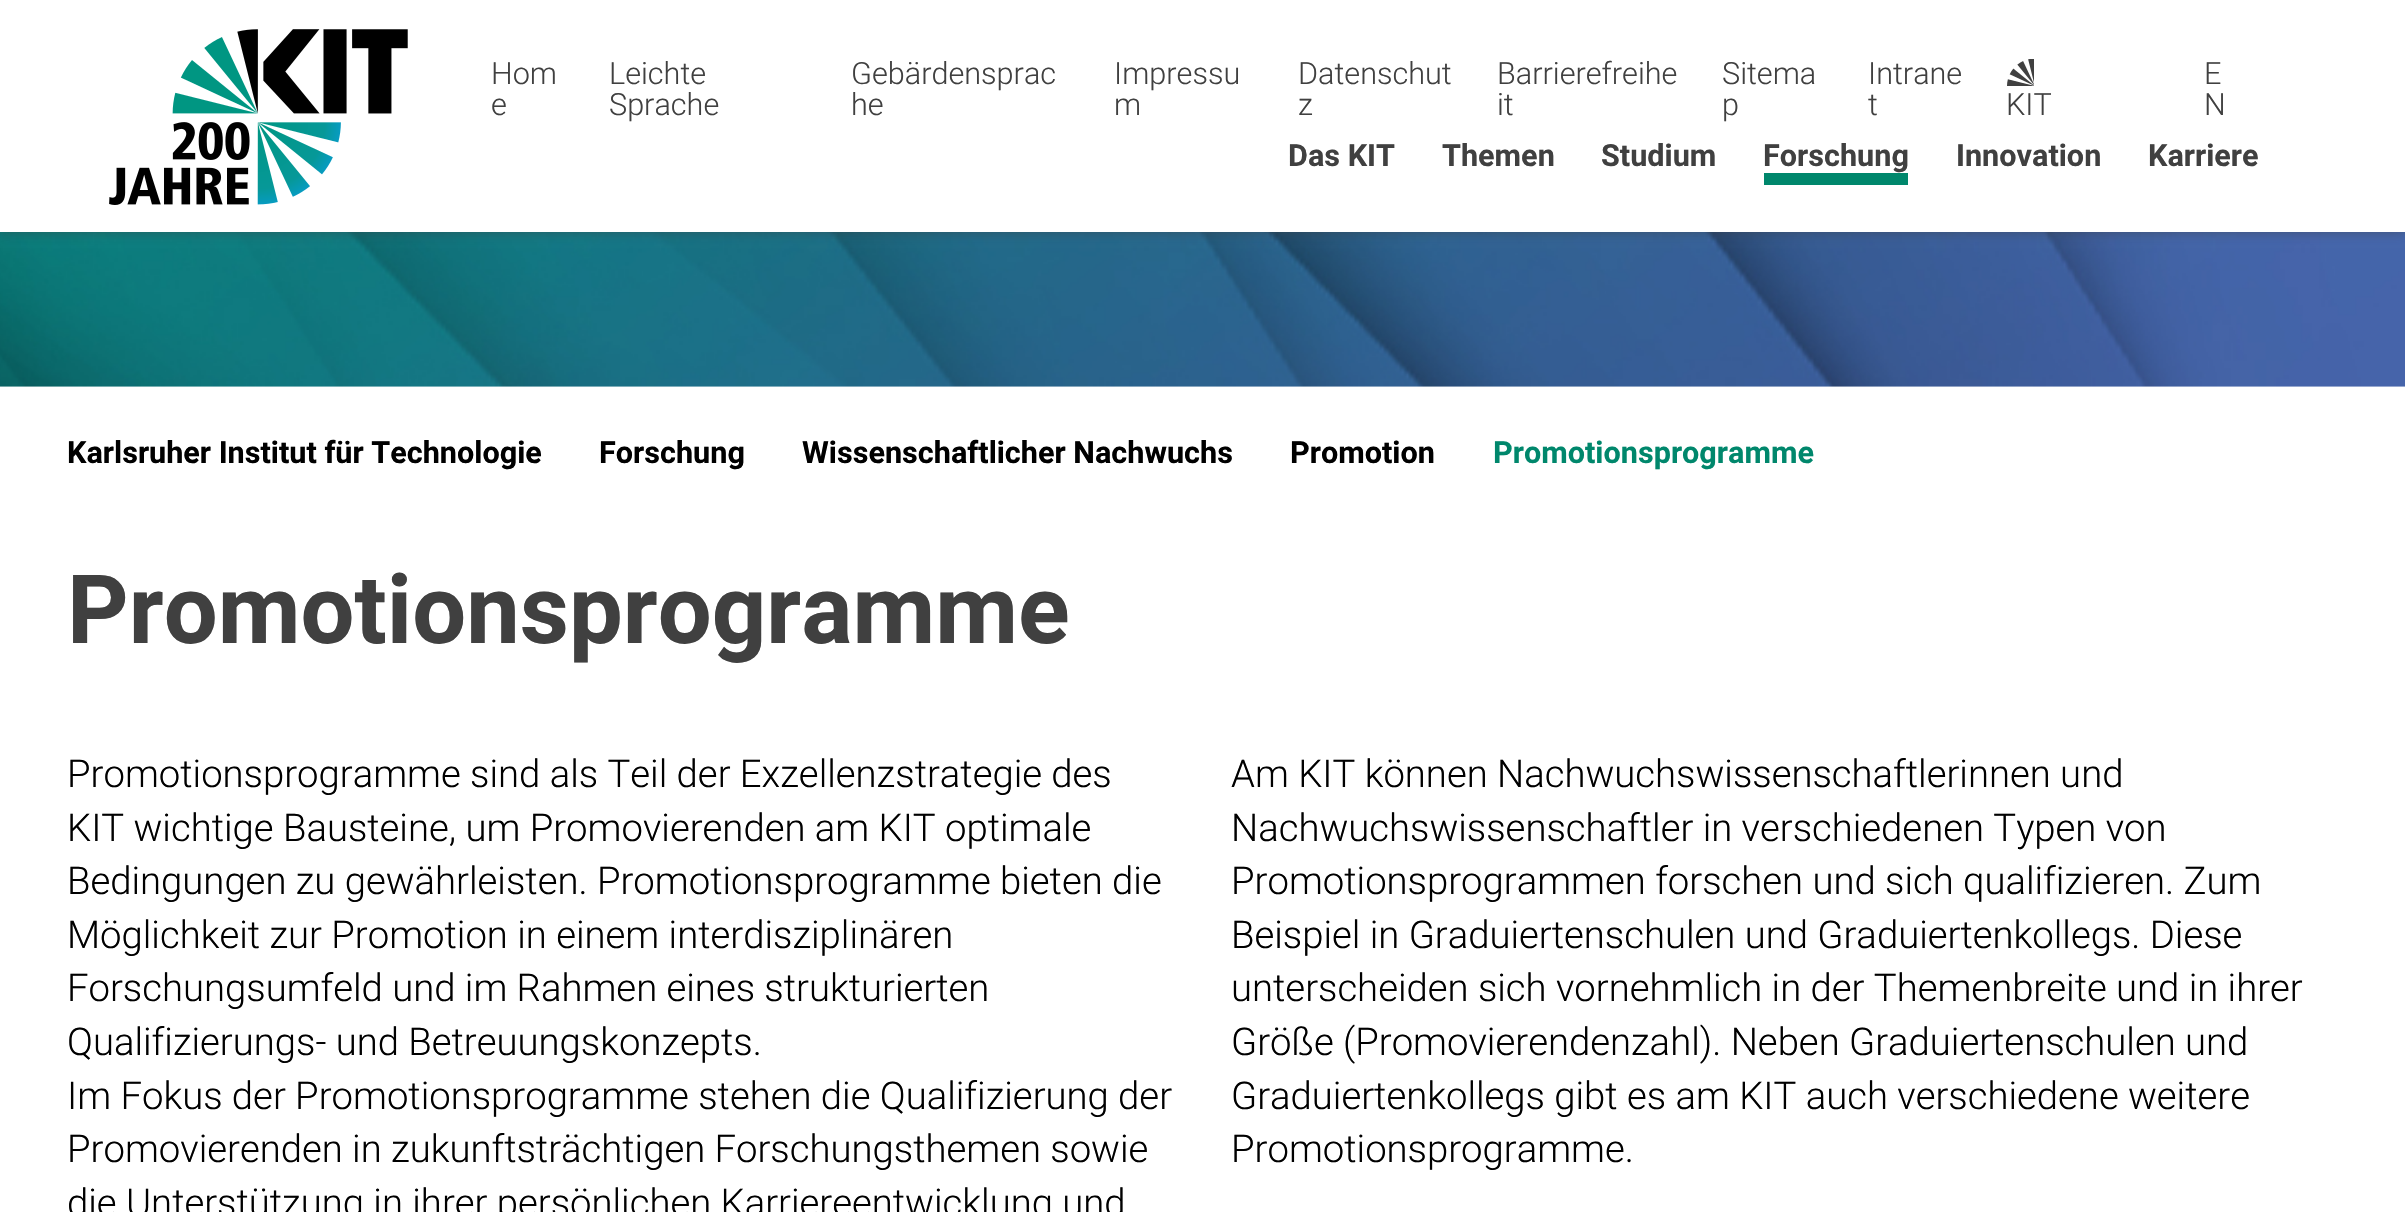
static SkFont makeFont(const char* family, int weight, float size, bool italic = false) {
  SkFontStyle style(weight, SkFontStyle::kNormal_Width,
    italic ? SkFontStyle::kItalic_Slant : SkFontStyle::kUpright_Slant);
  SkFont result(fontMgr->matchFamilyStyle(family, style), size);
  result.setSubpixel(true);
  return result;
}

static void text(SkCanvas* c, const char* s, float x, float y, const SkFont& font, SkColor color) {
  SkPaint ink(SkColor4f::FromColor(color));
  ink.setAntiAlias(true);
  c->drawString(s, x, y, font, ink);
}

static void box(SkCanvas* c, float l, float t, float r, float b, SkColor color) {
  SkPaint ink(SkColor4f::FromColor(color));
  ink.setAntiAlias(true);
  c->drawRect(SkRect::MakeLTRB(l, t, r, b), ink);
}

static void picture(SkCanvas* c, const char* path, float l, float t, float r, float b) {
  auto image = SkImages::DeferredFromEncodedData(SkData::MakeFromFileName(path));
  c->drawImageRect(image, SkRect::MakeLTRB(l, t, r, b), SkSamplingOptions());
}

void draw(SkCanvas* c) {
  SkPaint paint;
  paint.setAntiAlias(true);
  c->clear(0xffffffff);
  picture(c, "img_03.png", 0, 232, 2405, 387);
  paint.setColor(0x80404040);
  paint.setMaskFilter(SkMaskFilter::MakeBlur(kNormal_SkBlurStyle, 5.5f));
  c->drawRect(SkRect::MakeLTRB(0, 0, 2405, 232), paint);
  paint.setMaskFilter(nullptr);
  box(c, 0, 0, 2405, 232, 0xffffffff);
  picture(c, "img_01.png", 109, 29, 408, 205);
  SkFont face1 = makeFont("Roboto", 300, 30.6f);
  text(c, "Hom", 491, 84, face1, 0xff404040);
  text(c, "e", 491, 115, face1, 0xff404040);
  text(c, "Leichte", 609, 84, face1, 0xff404040);
  text(c, "Sprache", 609, 115, face1, 0xff404040);
  text(c, "Gebärdensprac", 851, 84, face1, 0xff404040);
  text(c, "he", 851, 115, face1, 0xff404040);
  text(c, "Impressu", 1114, 84, face1, 0xff404040);
  text(c, "m", 1114, 115, face1, 0xff404040);
  text(c, "Datenschut", 1298, 84, face1, 0xff404040);
  text(c, "z", 1298, 115, face1, 0xff404040);
  text(c, "Barrierefreihe", 1497, 84, face1, 0xff404040);
  text(c, "it", 1497, 115, face1, 0xff404040);
  text(c, "Sitema", 1722, 84, face1, 0xff404040);
  text(c, "p", 1722, 115, face1, 0xff404040);
  text(c, "Intrane", 1868, 84, face1, 0xff404040);
  text(c, "t", 1868, 115, face1, 0xff404040);
  picture(c, "img_02.png", 2007, 59, 2034, 86);
  text(c, "KIT", 2006, 115, face1, 0xff404040);
  text(c, "E", 2204, 84, face1, 0xff404040);
  text(c, "N", 2204, 115, face1, 0xff404040);
  SkFont face2 = makeFont("Roboto", 700, 30.6f);
  text(c, "Das KIT", 1288, 166, face2, 0xff404040);
  text(c, "Themen", 1442, 166, face2, 0xff404040);
  text(c, "Studium", 1601, 166, face2, 0xff404040);
  text(c, "Forschung", 1763, 166, face2, 0xff404040);
  box(c, 1764, 173, 1908, 185, 0xff00876c);
  text(c, "Innovation", 1956, 166, face2, 0xff404040);
  text(c, "Karriere", 2148, 166, face2, 0xff404040);
  text(c, "Karlsruher Institut für Technologie", 67, 463, face2, 0xff000000);
  text(c, "Forschung", 599, 463, face2, 0xff000000);
  text(c, "Wissenschaftlicher Nachwuchs", 802, 463, face2, 0xff000000);
  text(c, "Promotion", 1290, 463, face2, 0xff000000);
  text(c, "Promotionsprogramme", 1493, 463, face2, 0xff00876c);
  SkFont face3 = makeFont("Roboto", 700, 95.6f);
  text(c, "Promotionsprogramme", 67, 643, face3, 0xff404040);
  SkFont face4 = makeFont("Roboto", 300, 38.25f);
  text(c, "Promotionsprogramme sind als Teil der Exzellenzstrategie des", 67, 787, face4, 0xff000000);
  text(c, "KIT wichtige Bausteine, um Promovierenden am KIT optimale", 67, 841, face4, 0xff000000);
  text(c, "Bedingungen zu gewährleisten. Promotionsprogramme bieten die", 67, 894, face4, 0xff000000);
  text(c, "Möglichkeit zur Promotion in einem interdisziplinären", 67, 948, face4, 0xff000000);
  text(c, "Forschungsumfeld und im Rahmen eines strukturierten", 67, 1001, face4, 0xff000000);
  text(c, "Qualifizierungs- und Betreuungskonzepts.", 67, 1055, face4, 0xff000000);
  text(c, "Im Fokus der Promotionsprogramme stehen die Qualifizierung der", 67, 1109, face4, 0xff000000);
  text(c, "Promovierenden in zukunftsträchtigen Forschungsthemen sowie", 67, 1162, face4, 0xff000000);
  text(c, "die Unterstützung in ihrer persönlichen Karriereentwicklung und", 67, 1216, face4, 0xff000000);
  text(c, "Am KIT können Nachwuchswissenschaftlerinnen und", 1231, 787, face4, 0xff000000);
  text(c, "Nachwuchswissenschaftler in verschiedenen Typen von", 1231, 841, face4, 0xff000000);
  text(c, "Promotionsprogrammen forschen und sich qualifizieren. Zum", 1231, 894, face4, 0xff000000);
  text(c, "Beispiel in Graduiertenschulen und Graduiertenkollegs. Diese", 1231, 948, face4, 0xff000000);
  text(c, "unterscheiden sich vornehmlich in der Themenbreite und in ihrer", 1231, 1001, face4, 0xff000000);
  text(c, "Größe (Promovierendenzahl). Neben Graduiertenschulen und", 1231, 1055, face4, 0xff000000);
  text(c, "Graduiertenkollegs gibt es am KIT auch verschiedene weitere", 1231, 1109, face4, 0xff000000);
  text(c, "Promotionsprogramme.", 1231, 1162, face4, 0xff000000);
}
